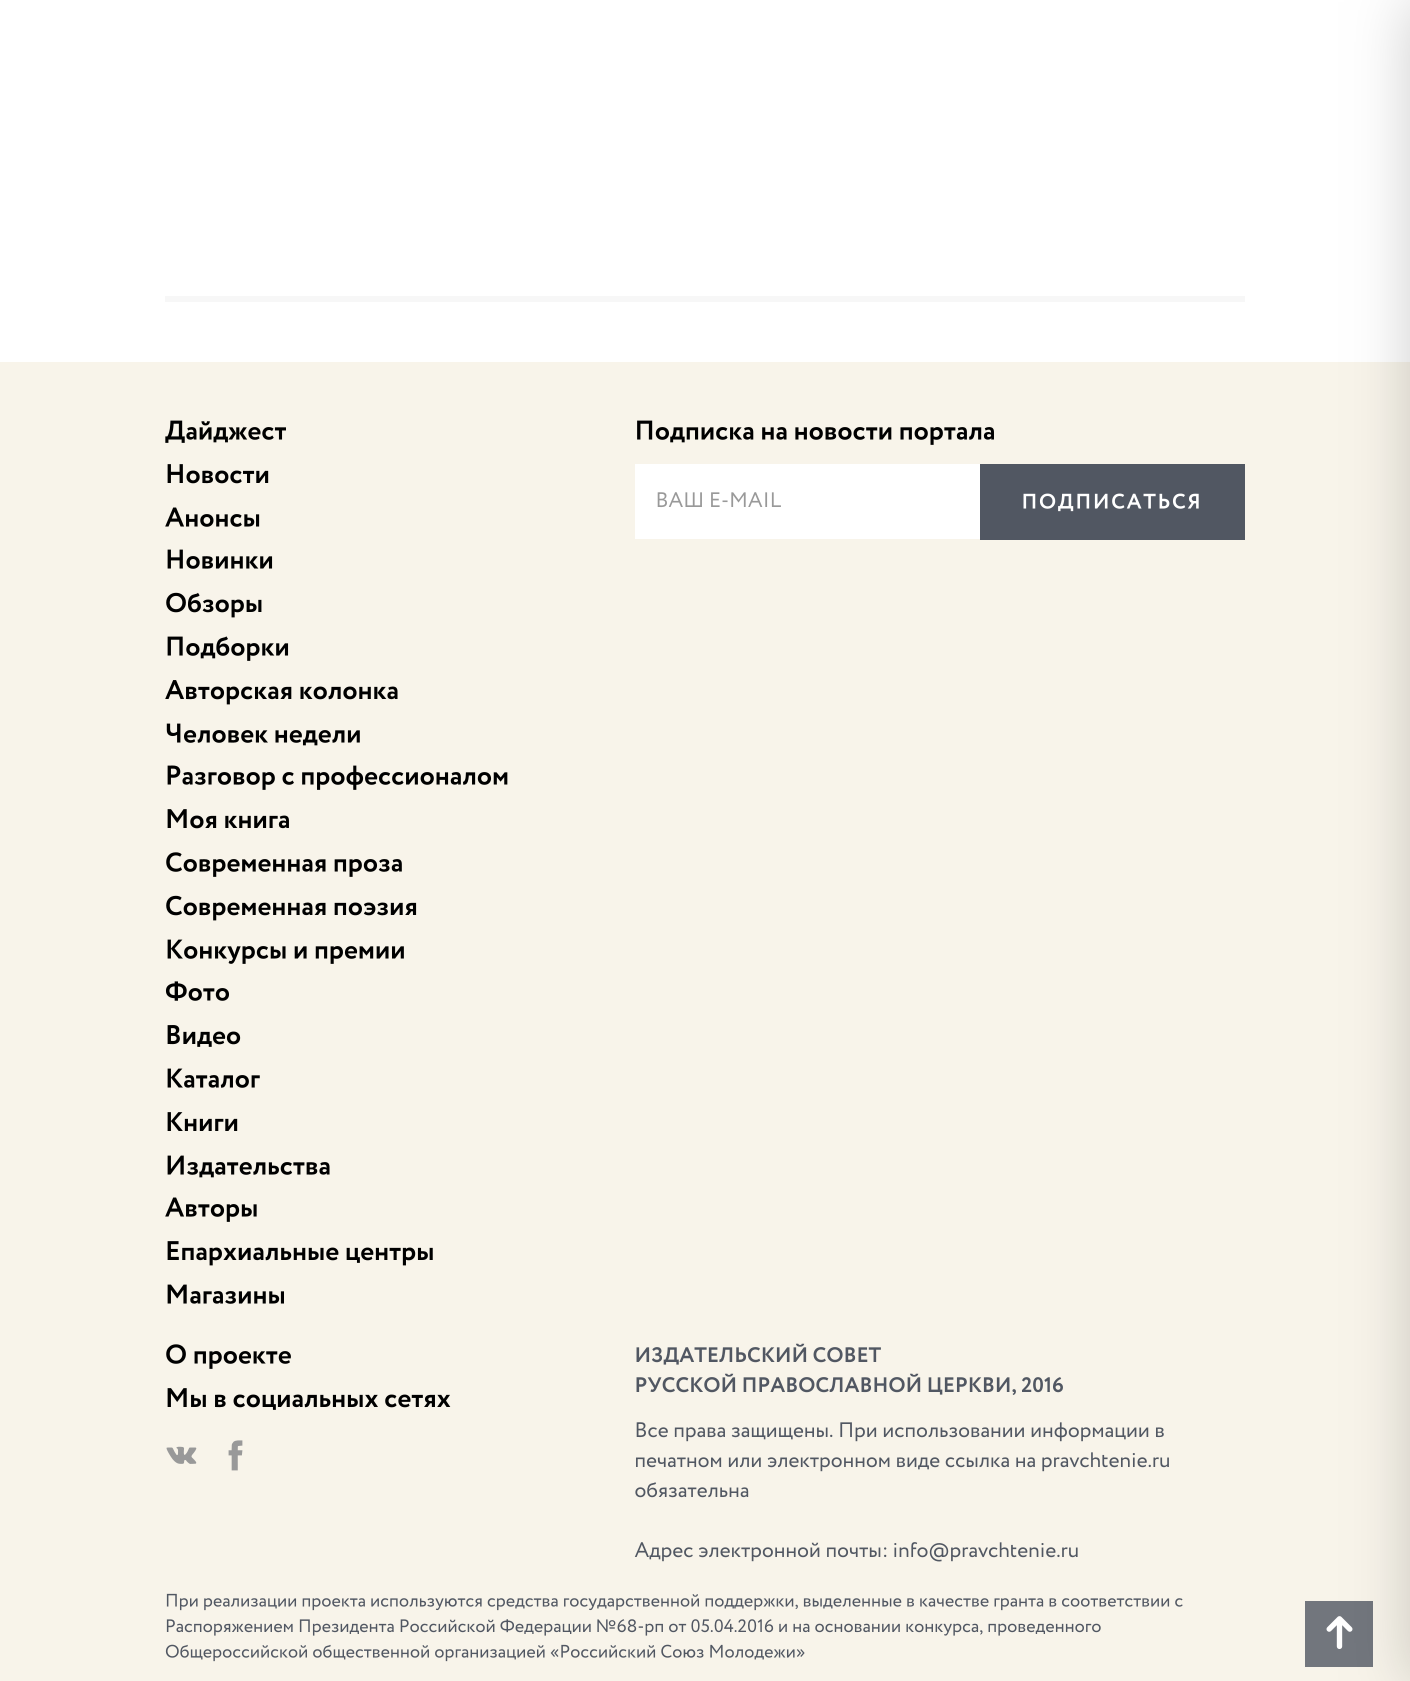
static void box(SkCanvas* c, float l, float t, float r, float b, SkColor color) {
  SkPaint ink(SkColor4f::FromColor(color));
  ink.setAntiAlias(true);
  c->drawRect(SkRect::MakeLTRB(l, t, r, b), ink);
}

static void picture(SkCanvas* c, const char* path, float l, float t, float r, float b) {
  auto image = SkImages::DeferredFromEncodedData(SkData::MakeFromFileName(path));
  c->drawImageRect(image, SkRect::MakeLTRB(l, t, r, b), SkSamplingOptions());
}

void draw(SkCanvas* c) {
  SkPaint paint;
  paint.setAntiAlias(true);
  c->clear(0xffffffff);
  box(c, 165, 296, 1245, 302, 0xfff7f7f7);
  box(c, 0, 362, 1410, 1681, 0xfff8f4ea);
  box(c, 1305, 1601, 1373, 1667, 0xff72767d);
  picture(c, "img_40.png", 1326, 1616, 1353, 1649);
  paint.setColor(0x30000000);
  paint.setMaskFilter(SkMaskFilter::MakeBlur(kNormal_SkBlurStyle, 30));
  c->drawRect(SkRect::MakeLTRB(1410, 2, 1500, 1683), paint);
  paint.setMaskFilter(nullptr);
  picture(c, "img_01.png", 165, 420, 286, 443);
  picture(c, "img_02.png", 167, 464, 269, 484);
  picture(c, "img_03.png", 165, 507, 260, 527);
  picture(c, "img_04.png", 167, 549, 273, 569);
  picture(c, "img_05.png", 166, 592, 262, 618);
  picture(c, "img_06.png", 167, 636, 289, 661);
  picture(c, "img_07.png", 165, 680, 398, 705);
  picture(c, "img_08.png", 166, 723, 360, 746);
  picture(c, "img_09.png", 167, 765, 508, 790);
  picture(c, "img_10.png", 167, 809, 289, 829);
  picture(c, "img_11.png", 166, 852, 402, 877);
  picture(c, "img_12.png", 166, 895, 417, 921);
  picture(c, "img_13.png", 167, 939, 404, 964);
  picture(c, "img_14.png", 165, 981, 229, 1001);
  picture(c, "img_15.png", 167, 1025, 241, 1047);
  picture(c, "img_16.png", 167, 1068, 260, 1088);
  picture(c, "img_17.png", 167, 1112, 238, 1131);
  picture(c, "img_18.png", 167, 1155, 330, 1178);
  picture(c, "img_19.png", 165, 1197, 257, 1222);
  picture(c, "img_20.png", 167, 1241, 433, 1266);
  picture(c, "img_21.png", 167, 1284, 284, 1304);
  picture(c, "img_22.png", 637, 420, 994, 445);
  box(c, 635, 464, 980, 539, 0xffffffff);
  picture(c, "img_23.png", 657, 492, 781, 508);
  box(c, 980, 464, 1245, 540, 0xff515762);
  picture(c, "img_24.png", 1023, 493, 1199, 512);
  picture(c, "img_25.png", 166, 1344, 291, 1369);
  picture(c, "img_26.png", 167, 1388, 451, 1410);
  picture(c, "img_27.png", 166, 1446, 197, 1464);
  picture(c, "img_28.png", 228, 1440, 243, 1471);
  picture(c, "img_29.png", 636, 1343, 881, 1365);
  picture(c, "img_30.png", 636, 1373, 1063, 1395);
  picture(c, "img_31.png", 636, 1422, 1164, 1442);
  picture(c, "img_32.png", 636, 1452, 1169, 1472);
  picture(c, "img_33.png", 635, 1482, 749, 1498);
  picture(c, "img_34.png", 634, 1542, 887, 1562);
  picture(c, "img_35.png", 894, 1542, 1078, 1562);
  picture(c, "img_36.png", 166, 1593, 1183, 1611);
  picture(c, "img_37.png", 166, 1619, 591, 1636);
  picture(c, "img_38.png", 597, 1619, 1101, 1636);
  picture(c, "img_39.png", 165, 1644, 805, 1662);
}
